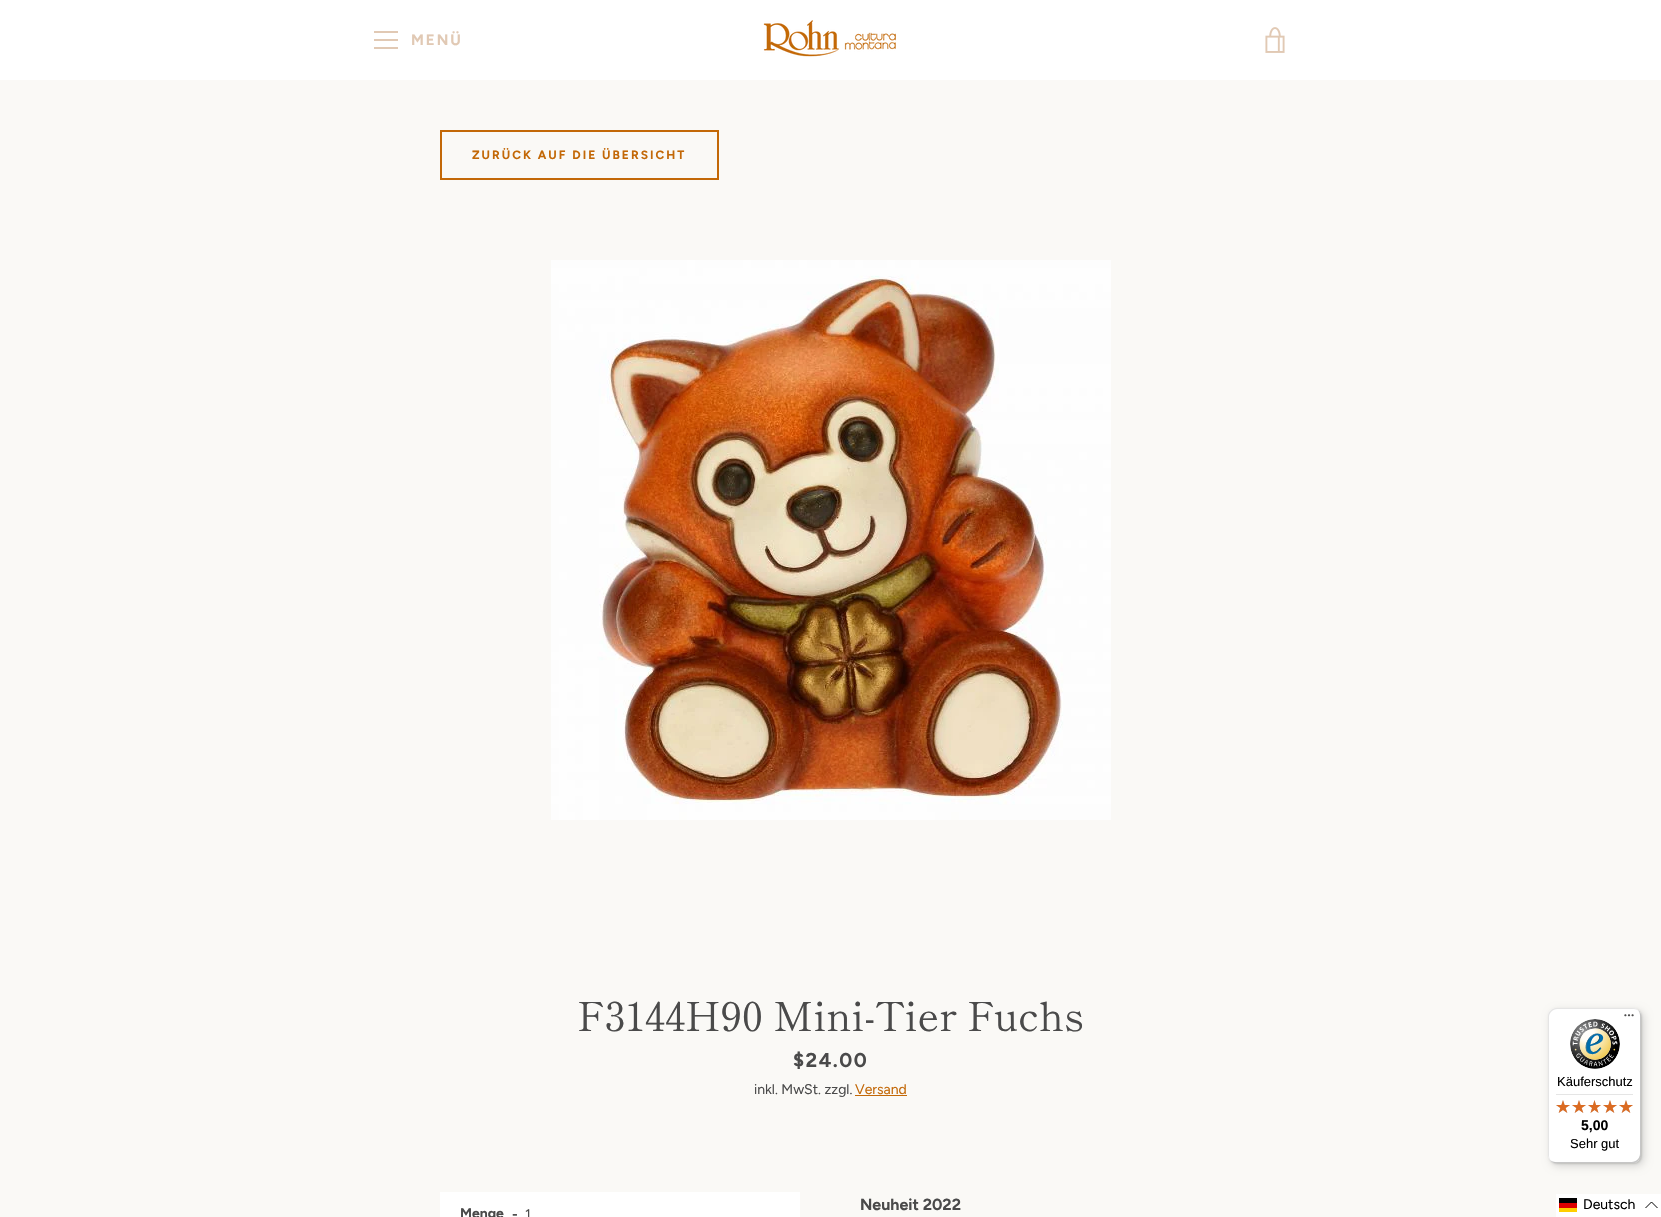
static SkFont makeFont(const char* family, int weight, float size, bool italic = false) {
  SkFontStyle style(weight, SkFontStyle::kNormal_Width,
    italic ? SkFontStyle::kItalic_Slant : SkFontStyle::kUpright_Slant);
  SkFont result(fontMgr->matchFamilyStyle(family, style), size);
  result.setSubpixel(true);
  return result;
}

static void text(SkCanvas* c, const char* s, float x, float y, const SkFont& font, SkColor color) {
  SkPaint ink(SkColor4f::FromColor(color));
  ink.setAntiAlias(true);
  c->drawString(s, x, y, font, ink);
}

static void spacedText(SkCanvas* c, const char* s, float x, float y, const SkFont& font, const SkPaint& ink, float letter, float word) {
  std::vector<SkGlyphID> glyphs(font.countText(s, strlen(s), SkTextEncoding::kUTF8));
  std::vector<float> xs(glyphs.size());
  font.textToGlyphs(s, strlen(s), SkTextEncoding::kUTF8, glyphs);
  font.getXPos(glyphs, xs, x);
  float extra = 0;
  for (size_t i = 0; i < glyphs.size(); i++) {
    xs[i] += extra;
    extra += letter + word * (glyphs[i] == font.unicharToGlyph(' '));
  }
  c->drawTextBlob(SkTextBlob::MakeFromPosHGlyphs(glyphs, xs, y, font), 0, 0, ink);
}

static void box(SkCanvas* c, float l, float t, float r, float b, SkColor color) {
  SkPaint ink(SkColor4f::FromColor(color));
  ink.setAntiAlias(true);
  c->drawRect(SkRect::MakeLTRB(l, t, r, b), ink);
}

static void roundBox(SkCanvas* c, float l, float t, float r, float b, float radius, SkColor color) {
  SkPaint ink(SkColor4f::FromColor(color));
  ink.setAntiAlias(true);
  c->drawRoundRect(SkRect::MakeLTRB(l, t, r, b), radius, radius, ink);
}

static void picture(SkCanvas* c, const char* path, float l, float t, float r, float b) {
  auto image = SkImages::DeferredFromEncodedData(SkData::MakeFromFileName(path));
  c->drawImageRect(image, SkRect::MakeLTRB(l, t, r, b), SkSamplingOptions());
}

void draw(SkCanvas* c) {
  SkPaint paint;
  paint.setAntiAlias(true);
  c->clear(0xfffaf9f6);
  box(c, 0, 0, 1661, 80, 0xffffffff);
  box(c, 374, 31, 398, 33, 0xffe1c9b4);
  SkFont face1 = makeFont("Figtree", 700, 15);
  paint.setColor(0xffe1c9b4);
  spacedText(c, "MENÜ", 411, 45, face1, paint, 2, 0);
  box(c, 374, 39, 398, 41, 0xffe1c9b4);
  box(c, 374, 47, 398, 49, 0xffe1c9b4);
  picture(c, "img_01.png", 763, 20, 896, 57);
  picture(c, "img_02.png", 1265, 27, 1285, 53);
  paint.setStyle(SkPaint::kStroke_Style);
  paint.setStrokeWidth(2);
  paint.setColor(0xffc36807);
  c->drawRect(SkRect::MakeLTRB(441, 131, 718, 179), paint);
  SkFont face2 = makeFont("Figtree", 700, 12);
  paint.setStyle(SkPaint::kFill_Style);
  spacedText(c, "ZURÜCK AUF DIE ÜBERSICHT", 472, 159, face2, paint, 2, 0);
  picture(c, "img_03.png", 551, 260, 1111, 820);
  SkFont face3 = makeFont("Shippori Mincho", 400, 40);
  text(c, "F3144H90 Mini-Tier Fuchs", 577, 1031, face3, 0xff4a4a4a);
  SkFont face4 = makeFont("Figtree", 700, 20);
  paint.setColor(0xff4a4a4a);
  spacedText(c, "$24.00", 793, 1067, face4, paint, 1.5f, 0);
  SkFont face5 = makeFont("Figtree", 400, 14);
  text(c, "inkl. MwSt. zzgl.", 754, 1094, face5, 0xff4a4a4a);
  text(c, "Versand", 855, 1094, face5, 0xffc36807);
  box(c, 855, 1095, 907, 1096, 0xffc36807);
  SkFont face6 = makeFont("Figtree", 700, 16);
  text(c, "Neuheit 2022", 860, 1210, face6, 0xff4a4a4a);
  box(c, 440, 1192, 800, 1217, 0xffffffff);
  SkFont face7 = makeFont("Figtree", 700, 14);
  text(c, "Menge", 460, 1218, face7, 0xff4a4a4a);
  text(c, "-", 512, 1219, face7, 0xff4a4a4a);
  text(c, "1", 525, 1219, face5, 0xff4a4a4a);
  paint.setColor(0x26000000);
  paint.setMaskFilter(SkMaskFilter::MakeBlur(kNormal_SkBlurStyle, 4));
  c->drawRoundRect(SkRect::MakeLTRB(1551, 1011, 1644, 1166), 8, 8, paint);
  paint.setMaskFilter(nullptr);
  paint.setMaskFilter(SkMaskFilter::MakeBlur(kNormal_SkBlurStyle, 1));
  c->drawRoundRect(SkRect::MakeLTRB(1549, 1009, 1642, 1164), 8, 8, paint);
  paint.setMaskFilter(nullptr);
  roundBox(c, 1548, 1008, 1641, 1163, 8, 0xffffffff);
  paint.setColor(0xffe5e5e5);
  c->drawPath(SkPathBuilder().moveTo(1557, 1009).lineTo(1634, 1009).cubicTo(1636, 1009, 1638, 1010, 1640, 1012).cubicTo(1638, 1010, 1636, 1008, 1633, 1008).lineTo(1556, 1008).cubicTo(1552, 1008, 1548, 1012, 1548, 1016).lineTo(1548, 1155).cubicTo(1548, 1158, 1550, 1160, 1552, 1162).cubicTo(1550, 1160, 1549, 1158, 1549, 1156).lineTo(1549, 1017).cubicTo(1549, 1013, 1553, 1009, 1557, 1009).close().detach(), paint);
  paint.setColor(0x33000000);
  c->drawPath(SkPathBuilder().moveTo(1549, 1159).cubicTo(1551, 1161, 1553, 1163, 1556, 1163).lineTo(1633, 1163).cubicTo(1637, 1163, 1641, 1159, 1641, 1155).lineTo(1641, 1016).cubicTo(1641, 1013, 1639, 1011, 1637, 1009).cubicTo(1639, 1011, 1640, 1013, 1640, 1015).lineTo(1640, 1154).cubicTo(1640, 1158, 1636, 1162, 1632, 1162).lineTo(1555, 1162).cubicTo(1553, 1162, 1551, 1161, 1549, 1159).close().detach(), paint);
  paint.setColor(0x33323232);
  c->drawPath(SkPathBuilder().moveTo(1550, 1160).cubicTo(1551, 1162, 1554, 1163, 1556, 1163).lineTo(1633, 1163).cubicTo(1637, 1163, 1641, 1159, 1641, 1155).lineTo(1641, 1016).cubicTo(1641, 1014, 1640, 1011, 1638, 1010).cubicTo(1639, 1011, 1640, 1013, 1640, 1015).lineTo(1640, 1154).cubicTo(1640, 1159, 1637, 1162, 1632, 1162).lineTo(1555, 1162).cubicTo(1553, 1162, 1551, 1161, 1550, 1160).close().detach(), paint);
  paint.setColor(0x4dffffff);
  c->drawPath(SkPathBuilder().moveTo(1640, 1016).cubicTo(1640, 1011, 1637, 1008, 1632, 1008).lineTo(1633, 1008).cubicTo(1637, 1008, 1641, 1012, 1641, 1016).lineTo(1641, 1155).cubicTo(1641, 1159, 1637, 1163, 1633, 1163).lineTo(1556, 1163).cubicTo(1552, 1163, 1548, 1159, 1548, 1155).lineTo(1548, 1154).cubicTo(1548, 1159, 1551, 1162, 1556, 1162).lineTo(1632, 1162).cubicTo(1637, 1162, 1640, 1159, 1640, 1154).close().detach(), paint);
  picture(c, "img_04.png", 1624, 1014, 1634, 1017);
  picture(c, "img_05.png", 1570, 1019, 1620, 1069);
  SkFont face8 = makeFont("Liberation Sans", 400, 13);
  text(c, "Käuferschutz", 1557, 1086, face8, 0xff000000);
  box(c, 1556, 1094, 1633, 1095, 0xffe5e5e5);
  picture(c, "img_06.png", 1556, 1100, 1570, 1113);
  picture(c, "img_06.png", 1572, 1100, 1586, 1113);
  picture(c, "img_07.png", 1588, 1100, 1601, 1113);
  picture(c, "img_06.png", 1603, 1100, 1617, 1113);
  picture(c, "img_06.png", 1619, 1100, 1633, 1113);
  picture(c, "img_08.png", 1556, 1100, 1570, 1113);
  picture(c, "img_08.png", 1572, 1100, 1586, 1113);
  picture(c, "img_09.png", 1588, 1100, 1601, 1113);
  picture(c, "img_08.png", 1603, 1100, 1617, 1113);
  picture(c, "img_08.png", 1619, 1100, 1633, 1113);
  SkFont face9 = makeFont("Liberation Sans", 700, 14);
  text(c, "5,00", 1581, 1130, face9, 0xff000000);
  text(c, "Sehr gut", 1570, 1148, face8, 0xff000000);
  box(c, 1556, 1194, 1661, 1217, 0xffffffff);
  box(c, 1559, 1208, 1577, 1212, 0xffffce00);
  box(c, 1559, 1198, 1577, 1203, 0xff000000);
  box(c, 1559, 1203, 1577, 1208, 0xffdd0000);
  text(c, "Deutsch", 1583, 1209, face5, 0xff000000);
  paint.setStyle(SkPaint::kStroke_Style);
  paint.setStrokeWidth(1);
  paint.setColor(0xff000000);
  c->drawPath(SkPathBuilder().moveTo(1657.5f, 1208).lineTo(1651.5f, 1202).lineTo(1645.5f, 1208).detach(), paint);
}
